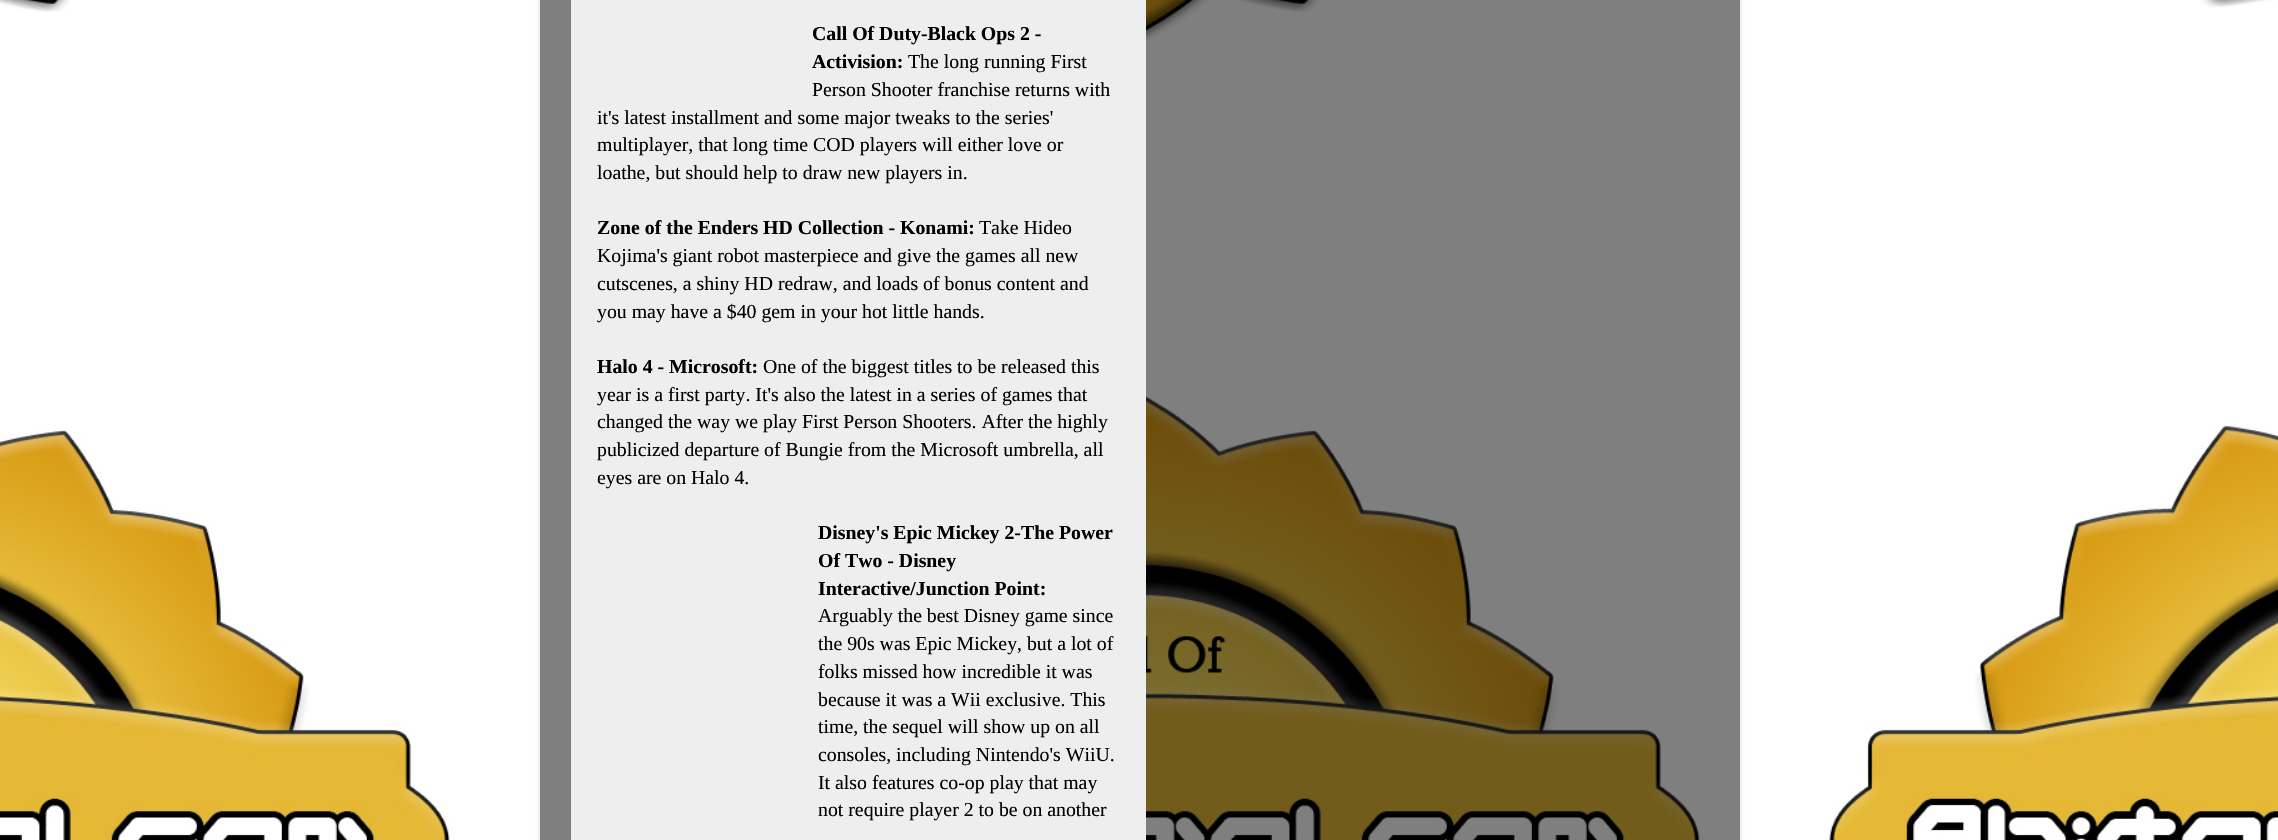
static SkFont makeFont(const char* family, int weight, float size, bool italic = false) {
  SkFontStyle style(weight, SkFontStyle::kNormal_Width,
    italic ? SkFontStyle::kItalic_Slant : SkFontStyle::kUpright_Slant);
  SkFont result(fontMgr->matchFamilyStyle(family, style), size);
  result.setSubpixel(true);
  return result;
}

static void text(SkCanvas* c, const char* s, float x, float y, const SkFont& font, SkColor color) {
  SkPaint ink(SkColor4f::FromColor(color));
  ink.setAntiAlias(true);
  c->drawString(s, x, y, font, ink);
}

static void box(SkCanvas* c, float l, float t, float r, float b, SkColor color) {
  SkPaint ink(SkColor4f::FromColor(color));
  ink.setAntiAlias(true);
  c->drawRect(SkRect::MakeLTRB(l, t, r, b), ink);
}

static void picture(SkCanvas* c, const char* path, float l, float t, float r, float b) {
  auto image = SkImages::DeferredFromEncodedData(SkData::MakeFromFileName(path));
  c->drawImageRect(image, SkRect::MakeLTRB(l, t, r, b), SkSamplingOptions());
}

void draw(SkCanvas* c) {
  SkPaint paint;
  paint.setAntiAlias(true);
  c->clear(0xffffffff);
  picture(c, "img_01.png", 0, 0, 2278, 840);
  c->save();
  c->clipPath(SkPathBuilder(SkPathFillType::kEvenOdd).moveTo(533, 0).lineTo(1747, 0).lineTo(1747, 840).lineTo(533, 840).close().moveTo(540, -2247).lineTo(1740, -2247).lineTo(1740, 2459).lineTo(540, 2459).close().detach(), true);
  paint.setColor(0x26000000);
  paint.setMaskFilter(SkMaskFilter::MakeBlur(kNormal_SkBlurStyle, 2));
  c->drawRect(SkRect::MakeLTRB(540, -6, 1740, 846), paint);
  paint.setMaskFilter(nullptr);
  c->restore();
  box(c, 540, 0, 1740, 840, 0x80000000);
  box(c, 571, 0, 1146, 840, 0xffeeeeee);
  SkFont face1 = makeFont("Liberation Serif", 700, 19.8f);
  text(c, "Call Of Duty-Black Ops 2 -", 812, 40, face1, 0xff000000);
  text(c, "Activision:", 812, 68, face1, 0xff000000);
  SkFont face2 = makeFont("Liberation Serif", 400, 19.8f);
  text(c, "The long running First", 908, 68, face2, 0xff000000);
  text(c, "Person Shooter franchise returns with", 812, 96, face2, 0xff000000);
  text(c, "it's latest installment and some major tweaks to the series'", 597, 124, face2, 0xff000000);
  text(c, "multiplayer, that long time COD players will either love or", 597, 151, face2, 0xff000000);
  text(c, "loathe, but should help to draw new players in.", 597, 179, face2, 0xff000000);
  text(c, "Zone of the Enders HD Collection - Konami:", 597, 234, face1, 0xff000000);
  text(c, "Take Hideo", 979, 234, face2, 0xff000000);
  text(c, "Kojima's giant robot masterpiece and give the games all new", 597, 262, face2, 0xff000000);
  text(c, "cutscenes, a shiny HD redraw, and loads of bonus content and", 597, 290, face2, 0xff000000);
  text(c, "you may have a $40 gem in your hot little hands.", 597, 318, face2, 0xff000000);
  text(c, "Halo 4 - Microsoft:", 597, 373, face1, 0xff000000);
  text(c, "One of the biggest titles to be released this", 763, 373, face2, 0xff000000);
  text(c, "year is a first party. It's also the latest in a series of games that", 597, 401, face2, 0xff000000);
  text(c, "changed the way we play First Person Shooters. After the highly", 597, 428, face2, 0xff000000);
  text(c, "publicized departure of Bungie from the Microsoft umbrella, all", 597, 456, face2, 0xff000000);
  text(c, "eyes are on Halo 4.", 597, 484, face2, 0xff000000);
  text(c, "Disney's Epic Mickey 2-The Power", 818, 539, face1, 0xff000000);
  text(c, "Of Two - Disney", 818, 567, face1, 0xff000000);
  text(c, "Interactive/Junction Point:", 818, 595, face1, 0xff000000);
  text(c, "Arguably the best Disney game since", 818, 622, face2, 0xff000000);
  text(c, "the 90s was Epic Mickey, but a lot of", 818, 650, face2, 0xff000000);
  text(c, "folks missed how incredible it was", 818, 678, face2, 0xff000000);
  text(c, "because it was a Wii exclusive. This", 818, 706, face2, 0xff000000);
  text(c, "time, the sequel will show up on all", 818, 733, face2, 0xff000000);
  text(c, "consoles, including Nintendo's WiiU.", 818, 761, face2, 0xff000000);
  text(c, "It also features co-op play that may", 818, 789, face2, 0xff000000);
  text(c, "not require player 2 to be on another", 818, 816, face2, 0xff000000);
}
